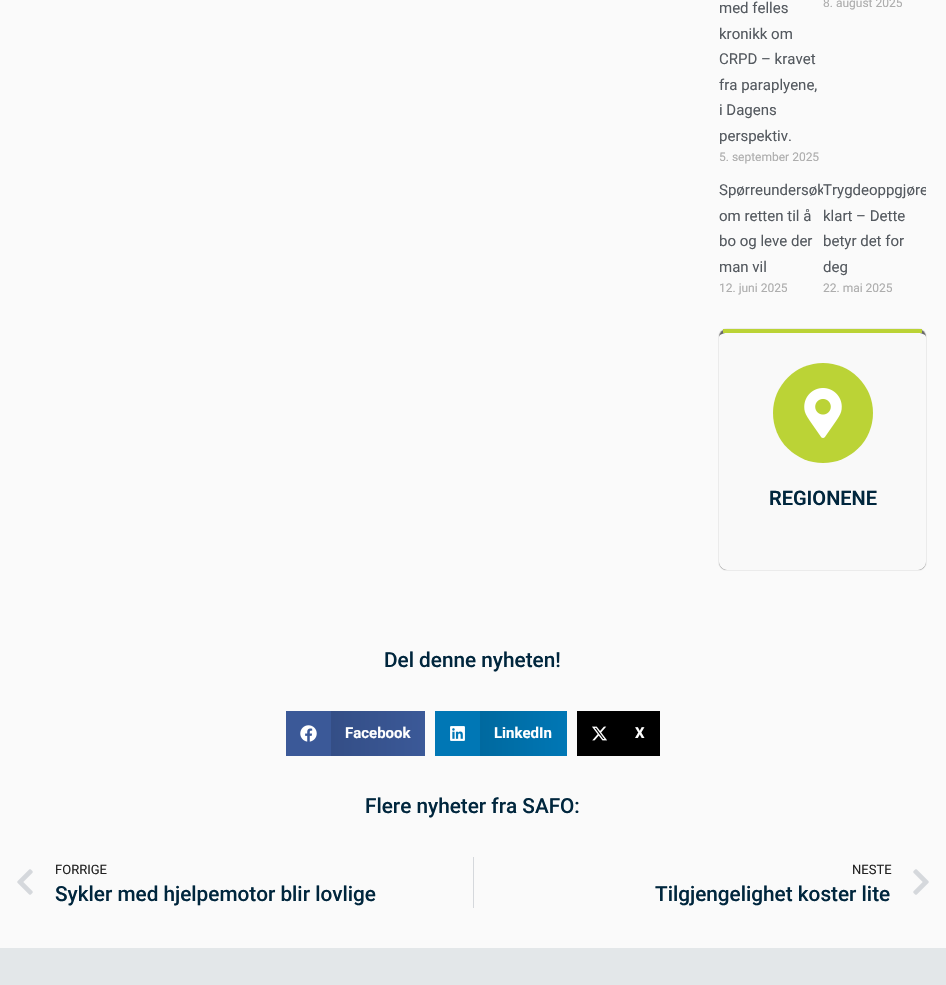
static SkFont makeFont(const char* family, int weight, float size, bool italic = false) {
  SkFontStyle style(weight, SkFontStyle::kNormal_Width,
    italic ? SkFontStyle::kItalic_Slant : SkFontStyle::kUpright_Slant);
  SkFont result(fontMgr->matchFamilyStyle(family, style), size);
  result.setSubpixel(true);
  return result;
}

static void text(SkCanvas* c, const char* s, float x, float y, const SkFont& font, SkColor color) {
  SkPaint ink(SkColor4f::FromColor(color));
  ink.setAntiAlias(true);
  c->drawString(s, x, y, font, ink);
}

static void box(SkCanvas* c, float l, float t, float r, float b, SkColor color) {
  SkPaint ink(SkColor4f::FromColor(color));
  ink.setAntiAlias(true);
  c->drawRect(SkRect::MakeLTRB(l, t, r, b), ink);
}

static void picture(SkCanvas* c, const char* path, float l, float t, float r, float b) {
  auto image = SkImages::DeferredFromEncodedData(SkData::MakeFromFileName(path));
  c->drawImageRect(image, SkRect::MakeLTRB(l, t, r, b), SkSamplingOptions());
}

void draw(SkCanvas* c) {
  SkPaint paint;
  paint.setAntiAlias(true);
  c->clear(0xfffafafa);
  SkFont face1 = makeFont("Roboto", 400, 15);
  text(c, "med felles", 719, 13, face1, 0xff54595f);
  text(c, "kronikk om", 719, 39, face1, 0xff54595f);
  text(c, "CRPD – kravet", 719, 64, face1, 0xff54595f);
  text(c, "fra paraplyene,", 719, 90, face1, 0xff54595f);
  text(c, "i Dagens", 719, 115, face1, 0xff54595f);
  text(c, "perspektiv.", 719, 141, face1, 0xff54595f);
  SkFont face2 = makeFont("Roboto", 400, 12);
  text(c, "5. september 2025", 719, 161, face2, 0xffadadad);
  text(c, "8. august 2025", 823, 7, face2, 0xffadadad);
  c->save();
  c->clipRect(SkRect::MakeLTRB(719, 178, 823, 309));
  text(c, "Spørreundersøk", 719, 195, face1, 0xff54595f);
  c->restore();
  text(c, "om retten til å", 719, 221, face1, 0xff54595f);
  text(c, "bo og leve der", 719, 246, face1, 0xff54595f);
  text(c, "man vil", 719, 272, face1, 0xff54595f);
  text(c, "12. juni 2025", 719, 292, face2, 0xffadadad);
  c->save();
  c->clipRect(SkRect::MakeLTRB(823, 178, 926, 309));
  text(c, "Trygdeoppgjøre", 823, 195, face1, 0xff54595f);
  c->restore();
  text(c, "klart – Dette", 823, 221, face1, 0xff54595f);
  text(c, "betyr det for", 823, 246, face1, 0xff54595f);
  text(c, "deg", 823, 272, face1, 0xff54595f);
  text(c, "22. mai 2025", 823, 292, face2, 0xffadadad);
  paint.setColor(0x99000000);
  paint.setMaskFilter(SkMaskFilter::MakeBlur(kNormal_SkBlurStyle, 0.5f));
  c->drawRoundRect(SkRect::MakeLTRB(719, 329, 926, 570), 8, 8, paint);
  paint.setMaskFilter(nullptr);
  paint.setColor(0xfff9f9f9);
  c->drawPath(SkPathBuilder().moveTo(727, 333).lineTo(918, 333).cubicTo(922, 333, 926, 335, 926, 337).lineTo(926, 562).cubicTo(926, 566, 922, 570, 918, 570).lineTo(727, 570).cubicTo(723, 570, 719, 566, 719, 562).lineTo(719, 337).cubicTo(719, 335, 723, 333, 727, 333).close().detach(), paint);
  box(c, 723, 329, 922, 333, 0xffbbd336);
  paint.setColor(0xffbbd336);
  c->drawCircle(823, 413, 50, paint);
  picture(c, "img_01.png", 804, 388, 842, 438);
  SkFont face3 = makeFont("Roboto", 600, 20);
  text(c, "REGIONENE", 769, 505, face3, 0xff00263d);
  SkFont face4 = makeFont("Roboto", 500, 20.75f);
  text(c, "Del denne nyheten!", 384, 667, face4, 0xff00263d);
  box(c, 286, 711, 331, 756, 0xff3b5998);
  picture(c, "img_02.png", 300, 725, 317, 742);
  {
    const SkColor colors[] = {0xff344e86, 0xff3b5998};
    const float stops[] = {0, 1};
    const SkPoint ends[] = {{331, 734}, {425, 734}};
    paint.setShader(SkGradientShader::MakeLinear(ends, colors, stops, 2, SkTileMode::kClamp));
    paint.setAlpha(255);
  }
  c->drawRect(SkRect::MakeLTRB(331, 711, 425, 756), paint);
  SkFont face5 = makeFont("Roboto", 700, 15);
  text(c, "Facebook", 345, 738, face5, 0xffffffff);
  box(c, 435, 711, 480, 756, 0xff0077b5);
  picture(c, "img_03.png", 450, 726, 465, 741);
  {
    const SkColor colors[] = {0xff00699f, 0xff0077b5};
    const float stops[] = {0, 1};
    const SkPoint ends[] = {{480, 734}, {567, 734}};
    paint.setShader(SkGradientShader::MakeLinear(ends, colors, stops, 2, SkTileMode::kClamp));
    paint.setAlpha(255);
  }
  c->drawRect(SkRect::MakeLTRB(480, 711, 567, 756), paint);
  text(c, "LinkedIn", 494, 738, face5, 0xffffffff);
  box(c, 577, 711, 660, 756, 0xff000000);
  picture(c, "img_04.png", 592, 726, 607, 741);
  text(c, "X", 635, 738, face5, 0xffffffff);
  text(c, "Flere nyheter fra SAFO:", 365, 813, face4, 0xff00263d);
  picture(c, "img_05.png", 17, 869, 33, 895);
  SkFont face6 = makeFont("Roboto", 400, 13);
  text(c, "FORRIGE", 55, 874, face6, 0xff222222);
  text(c, "Sykler med hjelpemotor blir lovlige", 55, 901, face4, 0xff00263d);
  box(c, 473, 857, 474, 908, 0xffd5d8dc);
  text(c, "NESTE", 852, 874, face6, 0xff222222);
  text(c, "Tilgjengelighet koster lite", 655, 901, face4, 0xff00263d);
  picture(c, "img_06.png", 913, 869, 929, 895);
  box(c, 0, 948, 946, 985, 0xffe3e7e9);
}
